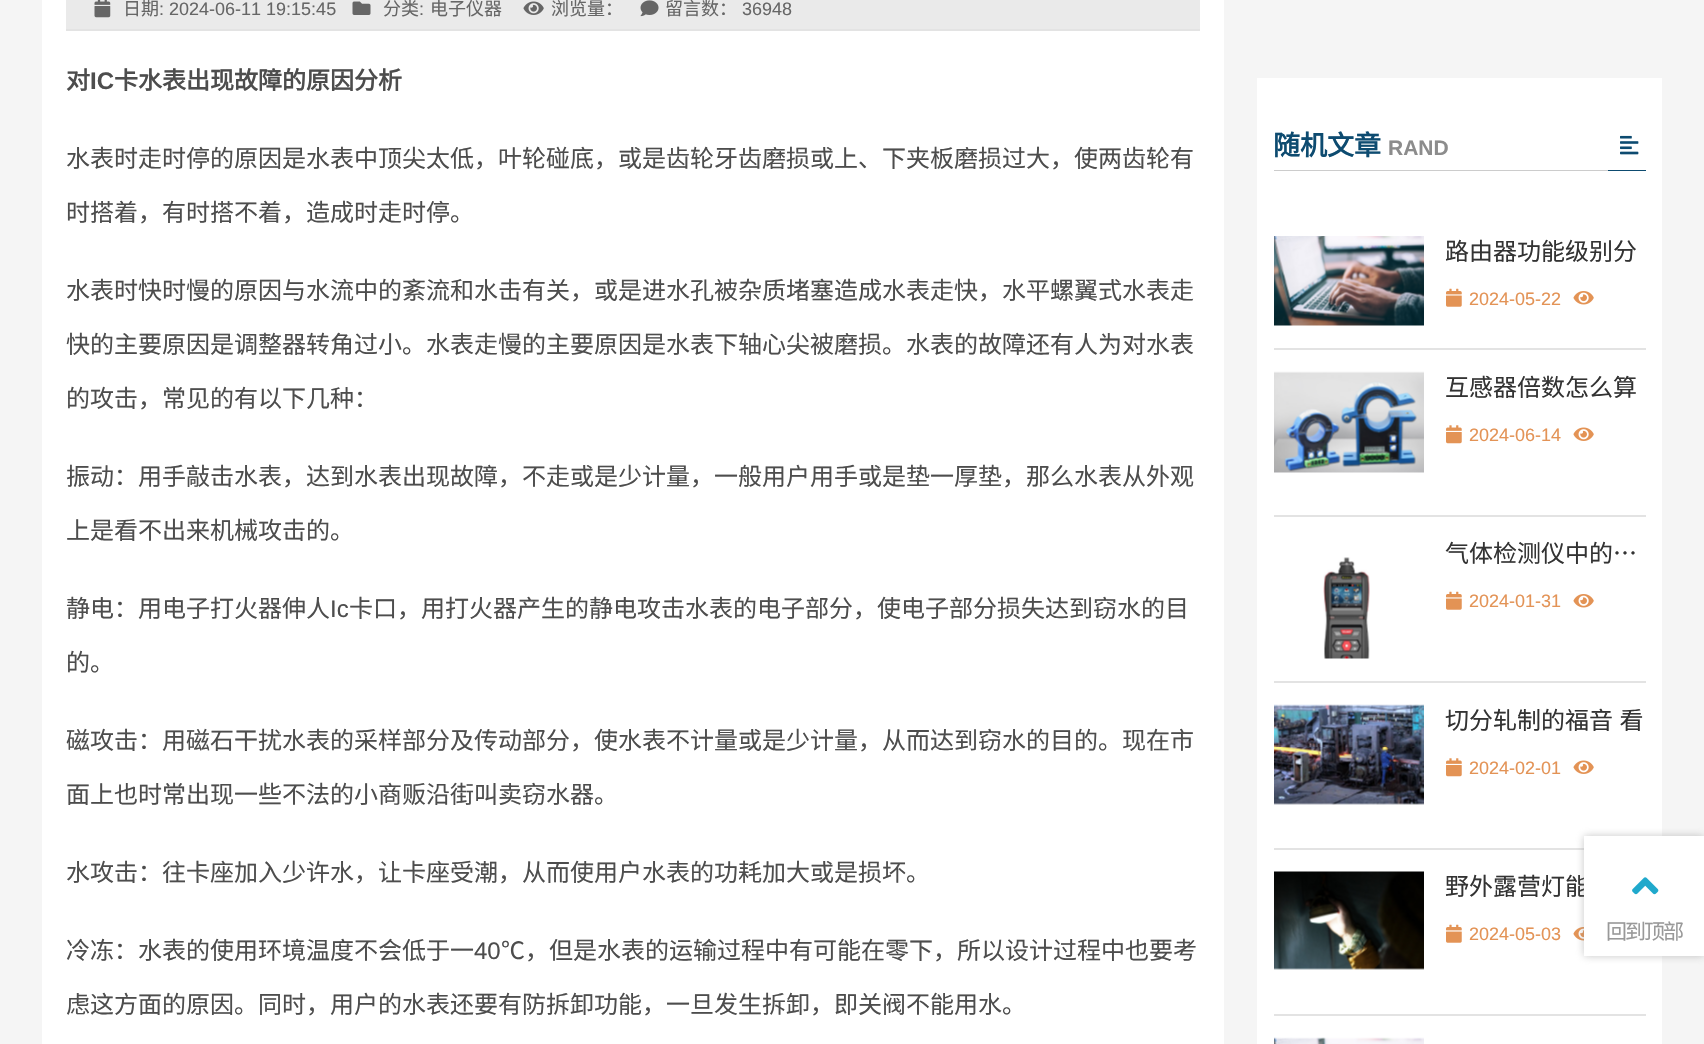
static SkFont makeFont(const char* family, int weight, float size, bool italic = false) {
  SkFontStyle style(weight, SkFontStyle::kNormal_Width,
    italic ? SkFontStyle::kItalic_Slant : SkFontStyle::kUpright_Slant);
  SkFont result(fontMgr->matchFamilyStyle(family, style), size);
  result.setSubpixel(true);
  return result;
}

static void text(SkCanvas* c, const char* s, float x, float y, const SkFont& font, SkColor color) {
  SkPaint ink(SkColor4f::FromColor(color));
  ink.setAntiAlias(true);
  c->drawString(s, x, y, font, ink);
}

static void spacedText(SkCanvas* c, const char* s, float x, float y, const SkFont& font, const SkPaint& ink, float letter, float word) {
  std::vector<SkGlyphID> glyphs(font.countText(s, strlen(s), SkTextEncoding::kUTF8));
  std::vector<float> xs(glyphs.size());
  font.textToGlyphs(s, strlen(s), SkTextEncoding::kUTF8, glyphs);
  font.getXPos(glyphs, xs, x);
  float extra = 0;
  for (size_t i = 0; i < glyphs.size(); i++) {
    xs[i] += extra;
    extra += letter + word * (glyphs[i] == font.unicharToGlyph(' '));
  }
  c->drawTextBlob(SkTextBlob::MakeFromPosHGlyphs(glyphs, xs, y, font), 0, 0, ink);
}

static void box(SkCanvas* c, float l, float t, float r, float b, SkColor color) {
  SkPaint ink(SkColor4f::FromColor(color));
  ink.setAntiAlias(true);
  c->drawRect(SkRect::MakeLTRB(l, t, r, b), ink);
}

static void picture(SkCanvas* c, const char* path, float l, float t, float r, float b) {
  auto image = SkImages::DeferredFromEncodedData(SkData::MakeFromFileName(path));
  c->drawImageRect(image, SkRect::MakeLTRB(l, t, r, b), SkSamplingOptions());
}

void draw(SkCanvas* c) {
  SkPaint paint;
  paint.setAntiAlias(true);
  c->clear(0xfff5f5f5);
  box(c, 42, 0, 1224, 1044, 0xffffffff);
  box(c, 66, 0, 1200, 29, 0xffeaeaea);
  box(c, 66, 29, 1200, 31, 0xffe3e3e3);
  picture(c, "img_01.png", 94, 0, 111, 18);
  SkFont face1 = makeFont("Noto Sans CJK SC", 400, 18);
  text(c, "日期", 123, 15, face1, 0xff666666);
  SkFont face2 = makeFont("Liberation Sans", 400, 18);
  text(c, ": 2024-06-11 19:15:45", 159, 15, face2, 0xff666666);
  picture(c, "img_02.png", 352, 1, 371, 15);
  text(c, "分类", 383, 15, face1, 0xff666666);
  text(c, ":", 419, 15, face2, 0xff666666);
  text(c, "电子仪器", 430, 15, face1, 0xff666666);
  picture(c, "img_03.png", 523, 1, 544, 15);
  text(c, "浏览量：", 551, 15, face1, 0xff666666);
  picture(c, "img_04.png", 640, 0, 659, 17);
  text(c, "留言数：", 665, 15, face1, 0xff666666);
  text(c, "36948", 742, 15, face2, 0xff666666);
  SkFont face3 = makeFont("Noto Sans CJK SC", 700, 24);
  text(c, "对", 66, 89, face3, 0xff4d4d4d);
  SkFont face4 = makeFont("Liberation Sans", 700, 24);
  text(c, "IC", 90, 89, face4, 0xff4d4d4d);
  text(c, "卡水表出现故障的原因分析", 114, 89, face3, 0xff4d4d4d);
  SkFont face5 = makeFont("Noto Sans CJK SC", 400, 24);
  text(c, "水表时走时停的原因是水表中顶尖太低，叶轮碰底，或是齿轮牙齿磨损或上、下夹板磨损过大，使两齿轮有", 66, 167, face5, 0xff4d4d4d);
  text(c, "时搭着，有时搭不着，造成时走时停。", 66, 221, face5, 0xff4d4d4d);
  text(c, "水表时快时慢的原因与水流中的紊流和水击有关，或是进水孔被杂质堵塞造成水表走快，水平螺翼式水表走", 66, 299, face5, 0xff4d4d4d);
  text(c, "快的主要原因是调整器转角过小。水表走慢的主要原因是水表下轴心尖被磨损。水表的故障还有人为对水表", 66, 353, face5, 0xff4d4d4d);
  text(c, "的攻击，常见的有以下几种：", 66, 407, face5, 0xff4d4d4d);
  text(c, "振动：用手敲击水表，达到水表出现故障，不走或是少计量，一般用户用手或是垫一厚垫，那么水表从外观", 66, 485, face5, 0xff4d4d4d);
  text(c, "上是看不出来机械攻击的。", 66, 539, face5, 0xff4d4d4d);
  text(c, "静电：用电子打火器伸人", 66, 617, face5, 0xff4d4d4d);
  SkFont face6 = makeFont("Liberation Sans", 400, 24);
  text(c, "Ic", 330, 617, face6, 0xff4d4d4d);
  text(c, "卡口，用打火器产生的静电攻击水表的电子部分，使电子部分损失达到窃水的目", 349, 617, face5, 0xff4d4d4d);
  text(c, "的。", 66, 671, face5, 0xff4d4d4d);
  text(c, "磁攻击：用磁石干扰水表的采样部分及传动部分，使水表不计量或是少计量，从而达到窃水的目的。现在市", 66, 749, face5, 0xff4d4d4d);
  text(c, "面上也时常出现一些不法的小商贩沿街叫卖窃水器。", 66, 803, face5, 0xff4d4d4d);
  text(c, "水攻击：往卡座加入少许水，让卡座受潮，从而使用户水表的功耗加大或是损坏。", 66, 881, face5, 0xff4d4d4d);
  text(c, "冷冻：水表的使用环境温度不会低于一", 66, 959, face5, 0xff4d4d4d);
  text(c, "40", 474, 959, face6, 0xff4d4d4d);
  text(c, "℃，但是水表的运输过程中有可能在零下，所以设计过程中也要考", 501, 959, face5, 0xff4d4d4d);
  text(c, "虑这方面的原因。同时，用户的水表还要有防拆卸功能，一旦发生拆卸，即关阀不能用水。", 66, 1013, face5, 0xff4d4d4d);
  box(c, 1257, 78, 1662, 1044, 0xffffffff);
  SkFont face7 = makeFont("Noto Sans CJK SC", 700, 27);
  text(c, "随机文章", 1273, 155, face7, 0xff0d4b70);
  SkFont face8 = makeFont("Liberation Sans", 700, 21);
  text(c, "RAND", 1388, 155, face8, 0xff8c8c8c);
  picture(c, "img_05.png", 1620, 135, 1639, 155);
  box(c, 1274, 170, 1608, 171, 0xffcccccc);
  box(c, 1608, 170, 1646, 171, 0xff0d4b70);
  box(c, 1274, 348, 1646, 350, 0xffe3e3e3);
  picture(c, "img_06.png", 1274, 236, 1424, 326);
  text(c, "路由器功能级别分", 1445, 260, face5, 0xff333333);
  picture(c, "img_07.png", 1446, 288, 1462, 307);
  text(c, "2024-05-22", 1469, 305, face2, 0xffe39356);
  picture(c, "img_08.png", 1573, 291, 1594, 305);
  box(c, 1274, 515, 1646, 517, 0xffe3e3e3);
  picture(c, "img_09.png", 1274, 371, 1424, 473);
  text(c, "互感器倍数怎么算", 1445, 396, face5, 0xff333333);
  picture(c, "img_10.png", 1446, 425, 1462, 444);
  text(c, "2024-06-14", 1469, 441, face2, 0xffe39356);
  picture(c, "img_11.png", 1573, 427, 1594, 441);
  box(c, 1274, 681, 1646, 683, 0xffe3e3e3);
  picture(c, "img_12.png", 1323, 557, 1370, 659);
  text(c, "气体检测仪中的…", 1445, 562, face5, 0xff333333);
  picture(c, "img_07.png", 1446, 591, 1462, 610);
  text(c, "2024-01-31", 1469, 607, face2, 0xffe39356);
  picture(c, "img_08.png", 1573, 594, 1594, 608);
  box(c, 1274, 848, 1584, 850, 0xffe3e3e3);
  picture(c, "img_13.png", 1274, 704, 1424, 805);
  paint.setColor(0xff333333);
  spacedText(c, "切分轧制的福音 看", 1445, 729, face5, paint, 0, 1);
  picture(c, "img_10.png", 1446, 758, 1462, 777);
  text(c, "2024-02-01", 1469, 774, face2, 0xffe39356);
  picture(c, "img_11.png", 1573, 760, 1594, 774);
  box(c, 1274, 1014, 1646, 1016, 0xffe3e3e3);
  picture(c, "img_14.png", 1274, 871, 1424, 970);
  text(c, "野外露营灯能", 1445, 895, face5, 0xff333333);
  picture(c, "img_07.png", 1446, 924, 1462, 943);
  text(c, "2024-05-03", 1469, 940, face2, 0xffe39356);
  picture(c, "img_15.png", 1573, 927, 1584, 941);
  picture(c, "img_16.png", 1274, 1037, 1424, 1044);
  c->save();
  c->clipPath(SkPathBuilder(SkPathFillType::kEvenOdd).moveTo(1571, 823).lineTo(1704, 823).lineTo(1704, 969).lineTo(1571, 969).close().moveTo(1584, 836).lineTo(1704, 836).lineTo(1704, 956).lineTo(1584, 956).close().detach(), true);
  paint.setColor(0x808d8d8d);
  paint.setMaskFilter(SkMaskFilter::MakeBlur(kNormal_SkBlurStyle, 4));
  c->drawRect(SkRect::MakeLTRB(1584, 836, 1704, 956), paint);
  paint.setMaskFilter(nullptr);
  c->restore();
  paint.setColor(0xffffffff);
  c->drawPath(SkPathBuilder().moveTo(1593, 836).lineTo(1704, 836).lineTo(1704, 956).lineTo(1593, 956).cubicTo(1588, 956, 1584, 952, 1584, 947).lineTo(1584, 845).cubicTo(1584, 840, 1588, 836, 1593, 836).close().detach(), paint);
  picture(c, "img_17.png", 1632, 877, 1659, 895);
  SkFont face9 = makeFont("Noto Sans CJK SC", 400, 21);
  paint.setColor(0xff999999);
  spacedText(c, "回到顶部", 1606, 939, face9, paint, -2, 0);
}
